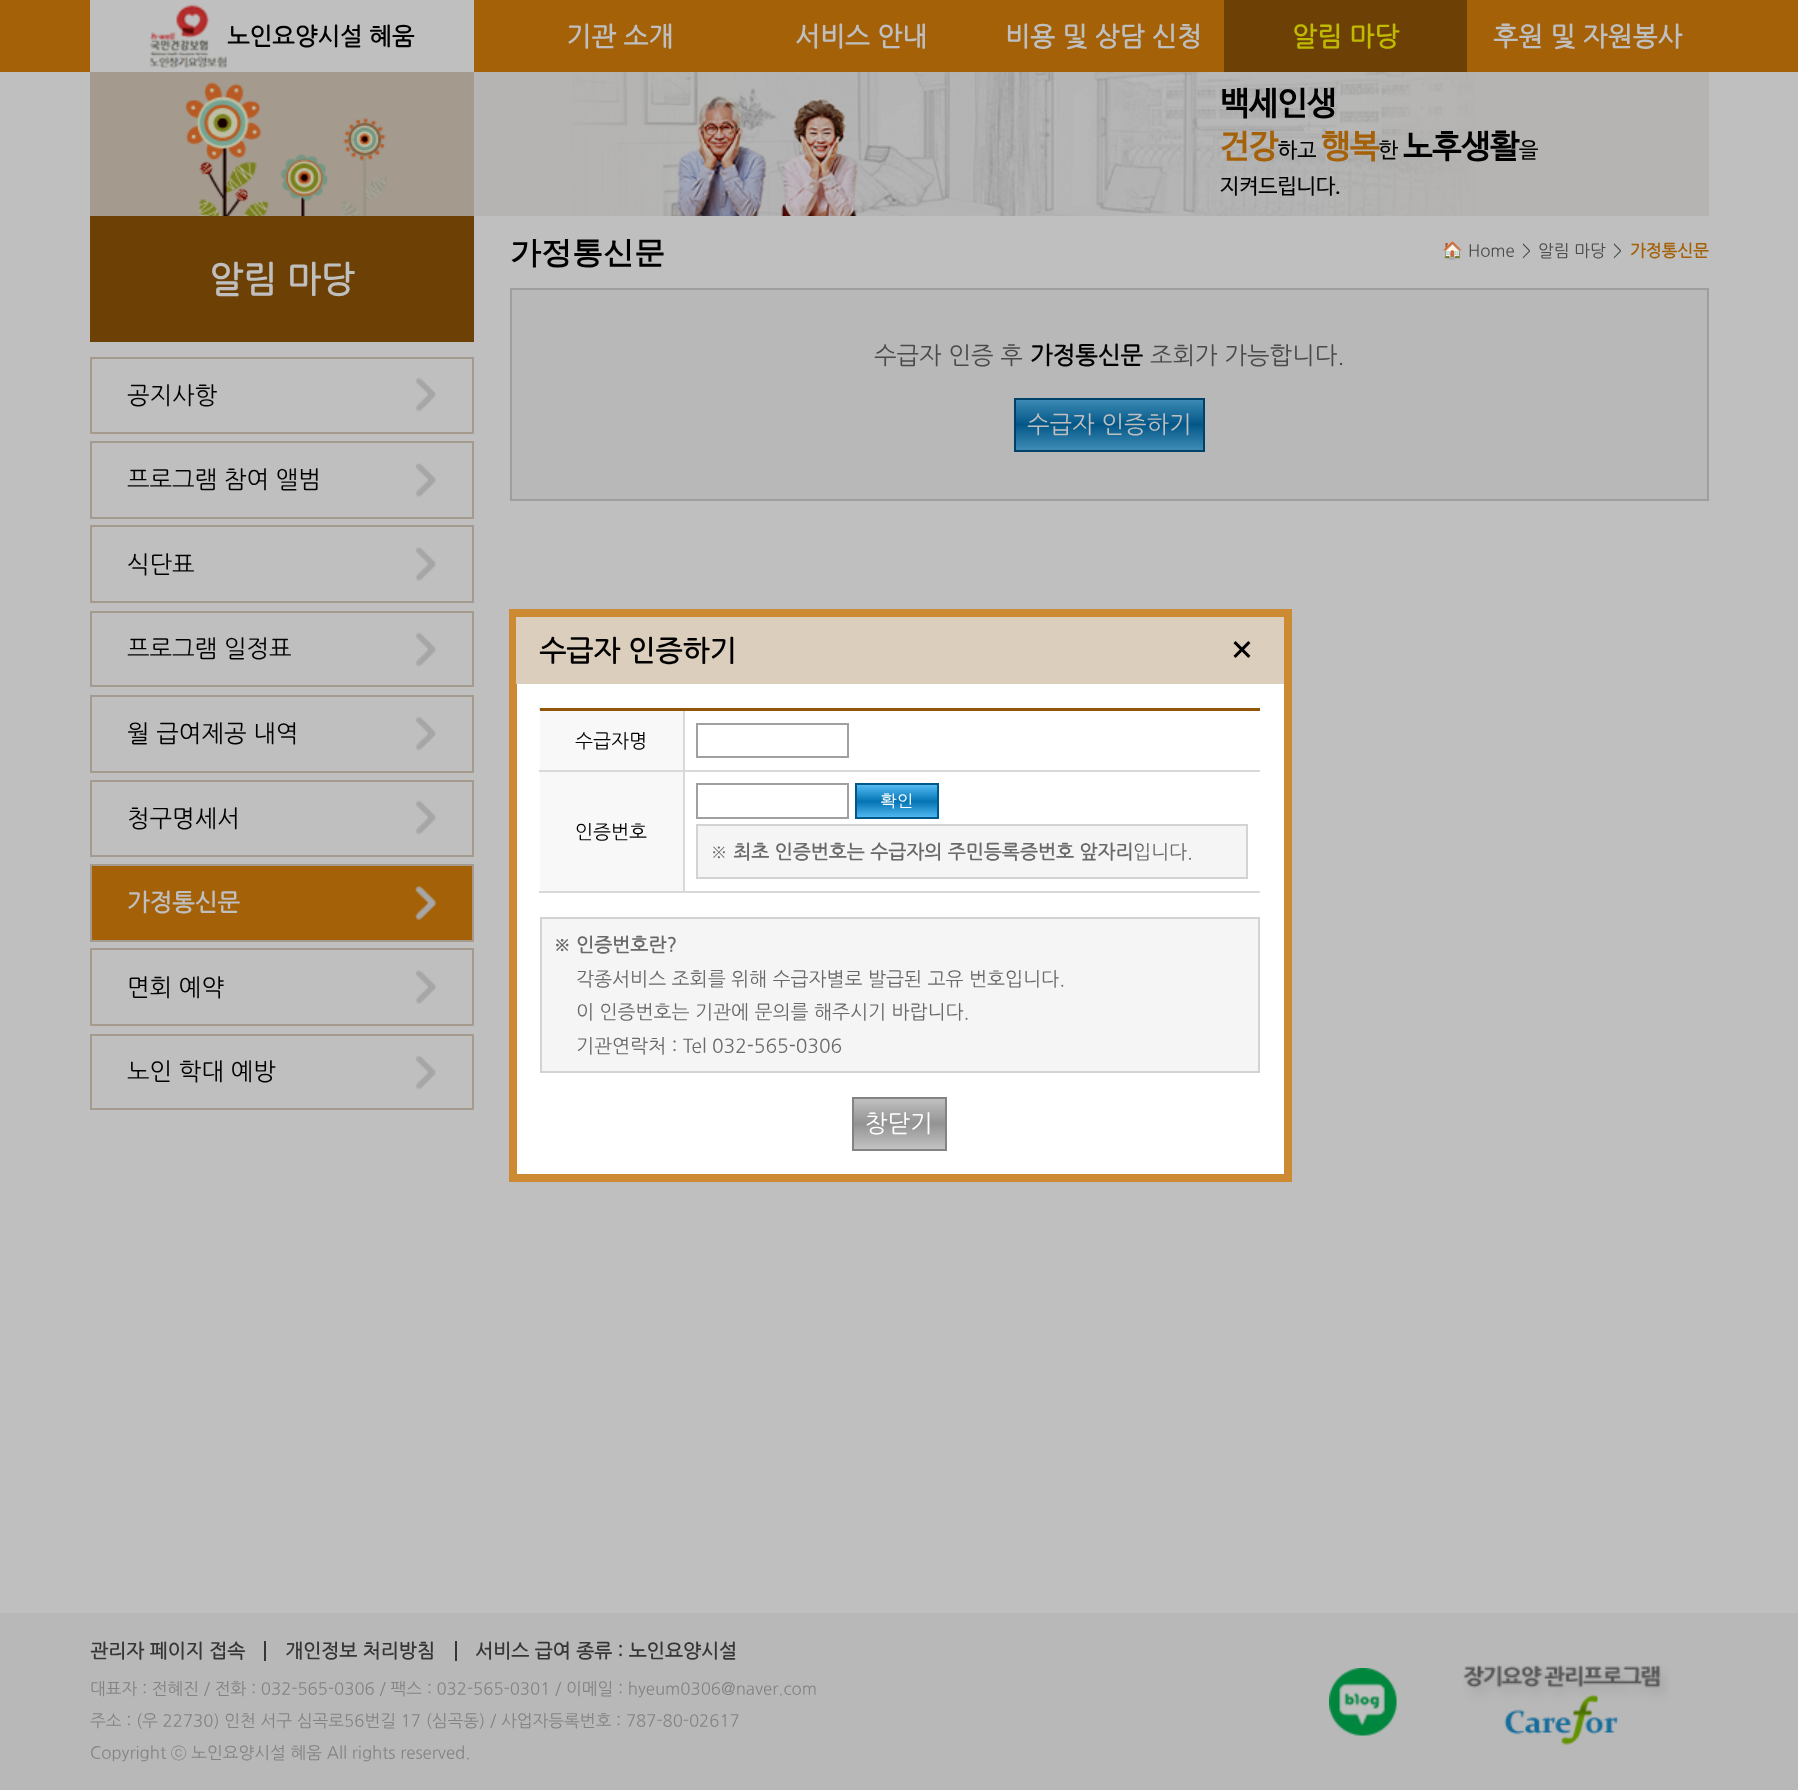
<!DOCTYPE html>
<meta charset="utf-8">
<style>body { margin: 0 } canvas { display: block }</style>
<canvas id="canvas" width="1798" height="1790"></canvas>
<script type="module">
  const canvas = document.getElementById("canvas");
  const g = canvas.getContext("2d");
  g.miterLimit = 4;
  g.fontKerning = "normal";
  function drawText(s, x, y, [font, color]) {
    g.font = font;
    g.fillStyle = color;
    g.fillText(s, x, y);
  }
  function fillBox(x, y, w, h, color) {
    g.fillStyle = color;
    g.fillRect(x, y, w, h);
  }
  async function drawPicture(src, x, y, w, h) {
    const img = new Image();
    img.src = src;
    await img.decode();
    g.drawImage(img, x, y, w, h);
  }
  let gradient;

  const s1 = ["bold 24px NanumGothic", "#000000"];
  const s2 = ["bold 26.5px NanumGothic", "#BFBFBF"];
  const s3 = ["bold 26.5px NanumGothic", "#BFB900"];
  const s4 = ["bold 32.5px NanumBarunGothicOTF", "#000000"];
  const s5 = ["bold 32.5px NanumBarunGothicOTF", "#A46108"];
  const s6 = ["21.5px NanumBarunGothicOTF", "#000000"];
  const s7 = ["bold 31px WenQuanYi Zen Hei", "#000000"];
  const s8 = ["16.8px Noto Color Emoji", "#4A4A4A"];
  const s9 = ["16.8px NanumGothic", "#4A4A4A"];
  const s10 = ["bold 16.8px NanumGothic", "#A46108"];
  const s11 = ["bold 36px NanumGothic", "#BFBFBF"];
  const s12 = ["24px NanumGothic", "#000000"];
  const s13 = ["bold 24px NanumGothic", "#BFBFBF"];
  const s14 = ["24px NanumGothic", "#4A4A4A"];
  const s15 = ["24px NanumGothic", "#BFBFBF"];
  const s16 = ["bold 19.2px NanumGothic", "#363636"];
  const s17 = ["16.8px NanumGothic", "#838383"];
  const s18 = ["bold 28.75px NanumGothic", "#000000"];
  const s19 = ["19.2px NanumGothic", "#000000"];
  const s20 = ["500 16.8px WenQuanYi Zen Hei", "#FFFFFF"];
  const s21 = ["19.2px NanumGothic", "#696969"];
  const s22 = ["bold 19.2px NanumGothic", "#696969"];
  const s23 = ["24px NanumGothic", "#FFFFFF"];

  fillBox(0, 0, 1798, 1790, "#BFBFBF");
  fillBox(0, 0, 1798, 72, "#A46108");
  fillBox(90, 0, 384, 72, "#BFBFBF");
  await drawPicture("pic1.png", 150, 4, 77, 64);
  drawText("노인요양시설 혜움", 227, 44, s1);
  drawText("기관 소개", 566, 45, s2);
  drawText("서비스 안내", 795, 45, s2);
  drawText("비용 및 상담 신청", 1005, 45, s2);
  fillBox(1224, 0, 243, 72, "#6D4106");
  drawText("알림 마당", 1292, 45, s3);
  drawText("후원 및 자원봉사", 1493, 45, s2);
  fillBox(90, 72, 384, 144, "#A49B8E");
  await drawPicture("pic2.png", 185, 82, 202, 134);
  fillBox(474, 72, 1235, 144, "#B5B4B3");
  await drawPicture("pic3.png", 572, 72, 902, 144);
  await drawPicture("pic4.png", 676, 96, 182, 120);
  drawText("백세인생", 1220, 114, s4);
  drawText("건강", 1220, 157, s5);
  drawText("하고", 1278, 157, s6);
  drawText("행복", 1321, 157, s5);
  drawText("한", 1379, 157, s6);
  drawText("노후생활", 1403, 157, s4);
  drawText("을", 1519, 157, s6);
  drawText("지켜드립니다.", 1220, 193, s6);
  drawText("가정통신문", 510, 263, s7);
  drawText("🏠", 1442, 256, s8);
  drawText("Home", 1468, 256, s9);
  drawText(">", 1522, 256, s9);
  drawText("알림 마당", 1538, 256, s9);
  drawText(">", 1613, 256, s9);
  drawText("가정통신문", 1630, 256, s10);
  fillBox(90, 216, 384, 126, "#6D4106");
  drawText("알림 마당", 209, 291, s11);
  await drawPicture("pic5.png", 416, 377, 20, 35);
  g.strokeStyle = "#A49B8E";
  g.lineWidth = 2;
  g.strokeRect(91, 358, 382, 75);
  drawText("공지사항", 127, 403, s12);
  await drawPicture("pic6.png", 416, 463, 20, 34);
  g.strokeRect(91, 442, 382, 76);
  drawText("프로그램 참여 앨범", 127, 487, s12);
  await drawPicture("pic7.png", 416, 547, 20, 34);
  g.strokeRect(91, 526, 382, 76);
  drawText("식단표", 127, 572, s12);
  await drawPicture("pic5.png", 416, 632, 20, 35);
  g.strokeRect(91, 612, 382, 74);
  drawText("프로그램 일정표", 127, 656, s12);
  await drawPicture("pic5.png", 416, 716, 20, 35);
  g.strokeRect(91, 696, 382, 76);
  drawText("월 급여제공 내역", 127, 741, s12);
  await drawPicture("pic5.png", 416, 800, 20, 35);
  g.strokeRect(91, 781, 382, 75);
  drawText("청구명세서", 127, 826, s12);
  fillBox(92, 866, 380, 74, "#A46108");
  await drawPicture("pic8.png", 415, 886, 22, 34);
  g.strokeRect(91, 865, 382, 76);
  drawText("가정통신문", 127, 910, s13);
  await drawPicture("pic6.png", 416, 970, 20, 34);
  g.strokeRect(91, 949, 382, 76);
  drawText("면회 예약", 127, 995, s12);
  await drawPicture("pic5.png", 416, 1055, 20, 35);
  g.strokeRect(91, 1035, 382, 74);
  drawText("노인 학대 예방", 127, 1079, s12);
  g.fillStyle = "#B8B8B8";
  g.beginPath();
  g.rect(511, 289, 1197, 211);
  g.fill();
  g.strokeStyle = "#9E9E9E";
  g.stroke();
  drawText("수급자 인증 후", 874, 363, s14);
  drawText("가정통신문", 1030, 363, s1);
  drawText("조회가 가능합니다.", 1150, 363, s14);
  gradient = g.createLinearGradient(1109, 450, 1109, 399);
  gradient.addColorStop(0, "#3E8CB6");
  gradient.addColorStop(0.5, "#035787");
  gradient.addColorStop(1, "#3E8CB6");
  g.fillStyle = gradient;
  g.fillRect(1016, 400, 187, 50);
  g.strokeStyle = "#004267";
  g.strokeRect(1015, 399, 189, 52);
  drawText("수급자 인증하기", 1027, 432, s15);
  fillBox(0, 1613, 1798, 177, "#B8B8B8");
  drawText("관리자 페이지 접속", 90, 1657, s16);
  fillBox(264, 1641, 2, 20, "#363636");
  drawText("개인정보 처리방침", 285, 1657, s16);
  fillBox(455, 1641, 2, 20, "#363636");
  drawText("서비스 급여 종류 : 노인요양시설", 475, 1657, s16);
  drawText("대표자 : 전혜진 / 전화 : 032-565-0306 / 팩스 : 032-565-0301 / 이메일 : hyeum0306@naver.com", 90, 1694, s17);
  drawText("주소 : (우 22730) 인천 서구 심곡로56번길 17 (심곡동)", 90, 1726, s17);
  drawText("/ 사업자등록번호 : 787-80-02617", 490, 1726, s17);
  drawText("Copyright ⓒ 노인요양시설 혜움 All rights reserved.", 90, 1758, s17);
  await drawPicture("pic9.png", 1329, 1668, 68, 68);
  await drawPicture("pic10.png", 1463, 1664, 206, 81);
  fillBox(517, 684, 767, 490, "#FFFFFF");
  g.strokeStyle = "#CC8A33";
  g.lineWidth = 8;
  g.strokeRect(513, 613, 775, 565);
  fillBox(516, 617, 768, 67, "#DBCEBD");
  drawText("수급자 인증하기", 539, 660, s18);
  await drawPicture("pic11.png", 1233, 641, 18, 17);
  fillBox(685, 891, 575, 2, "#D9D9D9");
  fillBox(683, 770, 577, 2, "#D9D9D9");
  fillBox(683, 770, 2, 123, "#D9D9D9");
  fillBox(539, 770, 145, 2, "#D9D9D9");
  fillBox(683, 708, 2, 63, "#D9D9D9");
  fillBox(540, 708, 720, 3, "#915608");
  fillBox(540, 711, 143, 59, "#F8F8F8");
  fillBox(539, 708, 1, 2, "#D9D9D9");
  drawText("수급자명", 575, 747, s19);
  g.strokeStyle = "#A0A0A0";
  g.lineWidth = 2;
  g.strokeRect(697, 724, 151, 33);
  fillBox(540, 772, 143, 119, "#F8F8F8");
  fillBox(539, 891, 145, 2, "#D9D9D9");
  drawText("인증번호", 575, 838, s19);
  g.strokeRect(697, 784, 151, 34);
  gradient = g.createLinearGradient(897, 818, 897, 785);
  gradient.addColorStop(0, "#53BBF3");
  gradient.addColorStop(0.5, "#0474B4");
  gradient.addColorStop(1, "#53BBF3");
  g.fillStyle = gradient;
  g.fillRect(857, 785, 80, 32);
  g.strokeStyle = "#005889";
  g.strokeRect(856, 784, 82, 34);
  drawText("확인", 880, 806, s20);
  g.fillStyle = "#F5F5F5";
  g.beginPath();
  g.rect(697, 825, 550, 53);
  g.fill();
  g.strokeStyle = "#D3D3D3";
  g.stroke();
  drawText("※", 710, 858, s21);
  drawText("최초 인증번호는 수급자의 주민등록증번호 앞자리", 733, 858, s22);
  drawText("입니다.", 1133, 858, s21);
  g.fillStyle = "#F5F5F5";
  g.beginPath();
  g.rect(541, 918, 718, 154);
  g.fill();
  g.stroke();
  drawText("※", 553, 951, s22);
  drawText("인증번호란?", 576, 951, s22);
  drawText("각종서비스 조회를 위해 수급자별로 발급된 고유 번호입니다.", 576, 985, s21);
  drawText("이 인증번호는 기관에 문의를 해주시기 바랍니다.", 576, 1018, s21);
  drawText("기관연락처 : Tel 032-565-0306", 576, 1052, s21);
  gradient = g.createLinearGradient(899, 1149, 899, 1098);
  gradient.addColorStop(0, "#C2C2C2");
  gradient.addColorStop(0.5, "#939393");
  gradient.addColorStop(1, "#C2C2C2");
  g.fillStyle = gradient;
  g.fillRect(854, 1099, 91, 50);
  g.strokeStyle = "#838383";
  g.strokeRect(853, 1098, 93, 52);
  drawText("창닫기", 865, 1131, s23);
</script>
